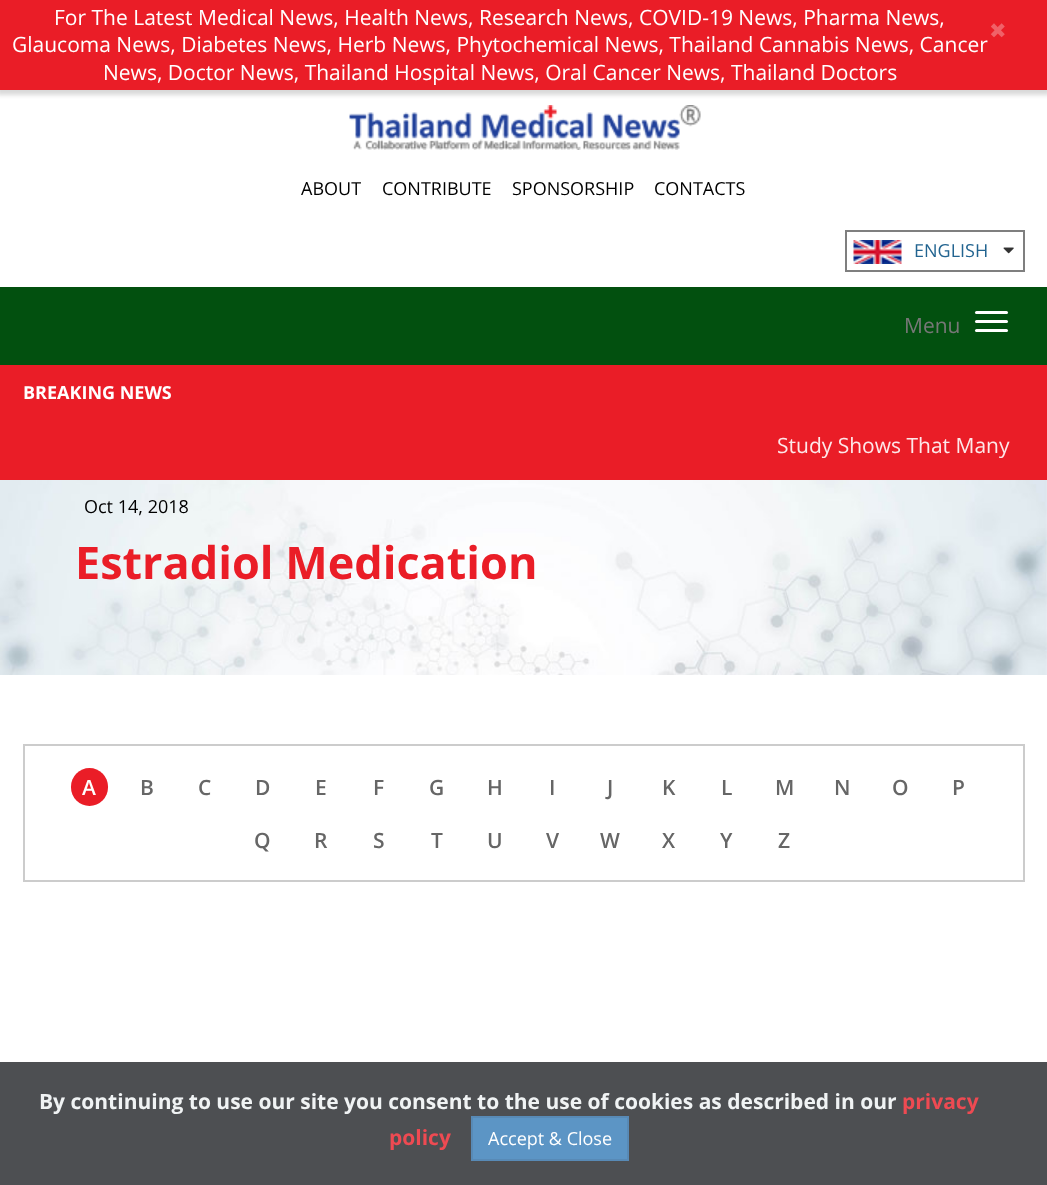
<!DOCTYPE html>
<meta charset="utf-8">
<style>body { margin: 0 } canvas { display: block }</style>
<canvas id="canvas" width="1047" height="1185"></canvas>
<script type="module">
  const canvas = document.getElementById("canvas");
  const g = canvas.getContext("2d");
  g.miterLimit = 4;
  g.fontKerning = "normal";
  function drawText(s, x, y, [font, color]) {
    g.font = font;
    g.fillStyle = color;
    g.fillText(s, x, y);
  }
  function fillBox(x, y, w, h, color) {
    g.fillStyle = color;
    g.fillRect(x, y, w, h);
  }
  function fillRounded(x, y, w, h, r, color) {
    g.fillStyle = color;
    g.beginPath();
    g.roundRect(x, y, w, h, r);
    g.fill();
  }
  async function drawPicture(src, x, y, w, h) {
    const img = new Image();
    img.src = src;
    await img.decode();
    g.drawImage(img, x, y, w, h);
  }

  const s1 = ["21px Open Sans", "#FFFFFF"];
  const s2 = ["21px DejaVu Sans", "#F06168"];
  const s3 = ["18px Open Sans", "#000000"];
  const s4 = ["18px Open Sans", "#226490"];
  const s5 = ["21px Open Sans", "#777777"];
  const s6 = ["bold 18px Open Sans", "#FFFFFF"];
  const s7 = ["21px Open Sans", "#FDE8E9"];
  const s8 = ["bold 45px Open Sans", "#EA1D27"];
  const s9 = ["600 21px Open Sans", "#FFFFFF"];
  const s10 = ["600 21px Open Sans", "#666666"];
  const s11 = ["bold 21px Open Sans", "#F0F3F4"];
  const s12 = ["bold 21px Open Sans", "#EE4A52"];
  const s13 = ["18px Open Sans", "#FFFFFF"];

  fillBox(0, 0, 1047, 1185, "#FFFFFF");
  g.fillStyle = "rgba(0, 0, 0, 0.15)";
  g.filter = "blur(2px)";
  g.beginPath();
  g.rect(-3, -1, 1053, 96);
  g.fill();
  g.filter = "none";
  fillBox(0, 0, 1047, 90, "#EA1D27");
  drawText("For The Latest Medical News, Health News, Research News, COVID-19 News, Pharma News,", 54, 25, s1);
  drawText("Glaucoma News, Diabetes News, Herb News, Phytochemical News, Thailand Cannabis News, Cancer", 12, 52, s1);
  drawText("News, Doctor News, Thailand Hospital News, Oral Cancer News, Thailand Doctors", 103, 80, s1);
  drawText("✖", 989, 38, s2);
  await drawPicture("pic1.png", 349, 105, 352, 45);
  drawText("ABOUT", 301, 195, s3);
  drawText("CONTRIBUTE", 382, 195, s3);
  drawText("SPONSORSHIP", 512, 195, s3);
  drawText("CONTACTS", 654, 195, s3);
  g.strokeStyle = "#7F7F7F";
  g.lineWidth = 2;
  g.strokeRect(846, 231, 178, 40);
  await drawPicture("pic2.png", 853, 240, 49, 24);
  drawText("ENGLISH", 914, 257, s4);
  await drawPicture("pic3.png", 1003, 247, 11, 7);
  fillBox(0, 287, 1047, 78, "#02500F");
  drawText("Menu", 904, 333, s5);
  fillRounded(975, 311, 33, 3, 1.5, "#FFFFFF");
  fillRounded(975, 320, 33, 3, 1.5, "#FFFFFF");
  fillRounded(975, 329, 33, 3, 1.5, "#FFFFFF");
  fillBox(0, 365, 1047, 115, "#EA1D27");
  drawText("BREAKING NEWS", 23, 399, s6);
  drawText("Study Shows That Many", 777, 453, s7);
  await drawPicture("pic4.png", 0, 480, 1047, 195);
  drawText("Oct 14, 2018", 84, 513, s3);
  drawText("Estradiol Medication", 75, 579, s8);
  g.strokeStyle = "#CCCCCC";
  g.strokeRect(24, 745, 1000, 136);
  fillRounded(71, 768, 37, 38, 18.5, "#EA1D27");
  drawText("A", 82, 795, s9);
  drawText("B", 140, 795, s10);
  drawText("C", 198, 795, s10);
  drawText("D", 255, 795, s10);
  drawText("E", 315, 795, s10);
  drawText("F", 373, 795, s10);
  drawText("G", 429, 795, s10);
  drawText("H", 487, 795, s10);
  drawText("I", 549, 795, s10);
  drawText("J", 607, 795, s10);
  drawText("K", 662, 795, s10);
  drawText("L", 721, 795, s10);
  drawText("M", 775, 795, s10);
  drawText("N", 834, 795, s10);
  drawText("O", 892, 795, s10);
  drawText("P", 952, 795, s10);
  drawText("Q", 254, 848, s10);
  drawText("R", 314, 848, s10);
  drawText("S", 373, 848, s10);
  drawText("T", 431, 848, s10);
  drawText("U", 487, 848, s10);
  drawText("V", 546, 848, s10);
  drawText("W", 600, 848, s10);
  drawText("X", 662, 848, s10);
  drawText("Y", 720, 848, s10);
  drawText("Z", 778, 848, s10);
  fillBox(0, 1062, 1047, 123, "#4D4F52");
  drawText("By continuing to use our site you consent to the use of cookies as described in our", 39, 1109, s11);
  drawText("privacy", 902, 1109, s12);
  drawText("policy", 389, 1145, s12);
  g.fillStyle = "#5C95C5";
  g.beginPath();
  g.rect(472, 1117, 156, 43);
  g.fill();
  g.strokeStyle = "#588AB6";
  g.stroke();
  drawText("Accept & Close", 488, 1145, s13);
</script>
